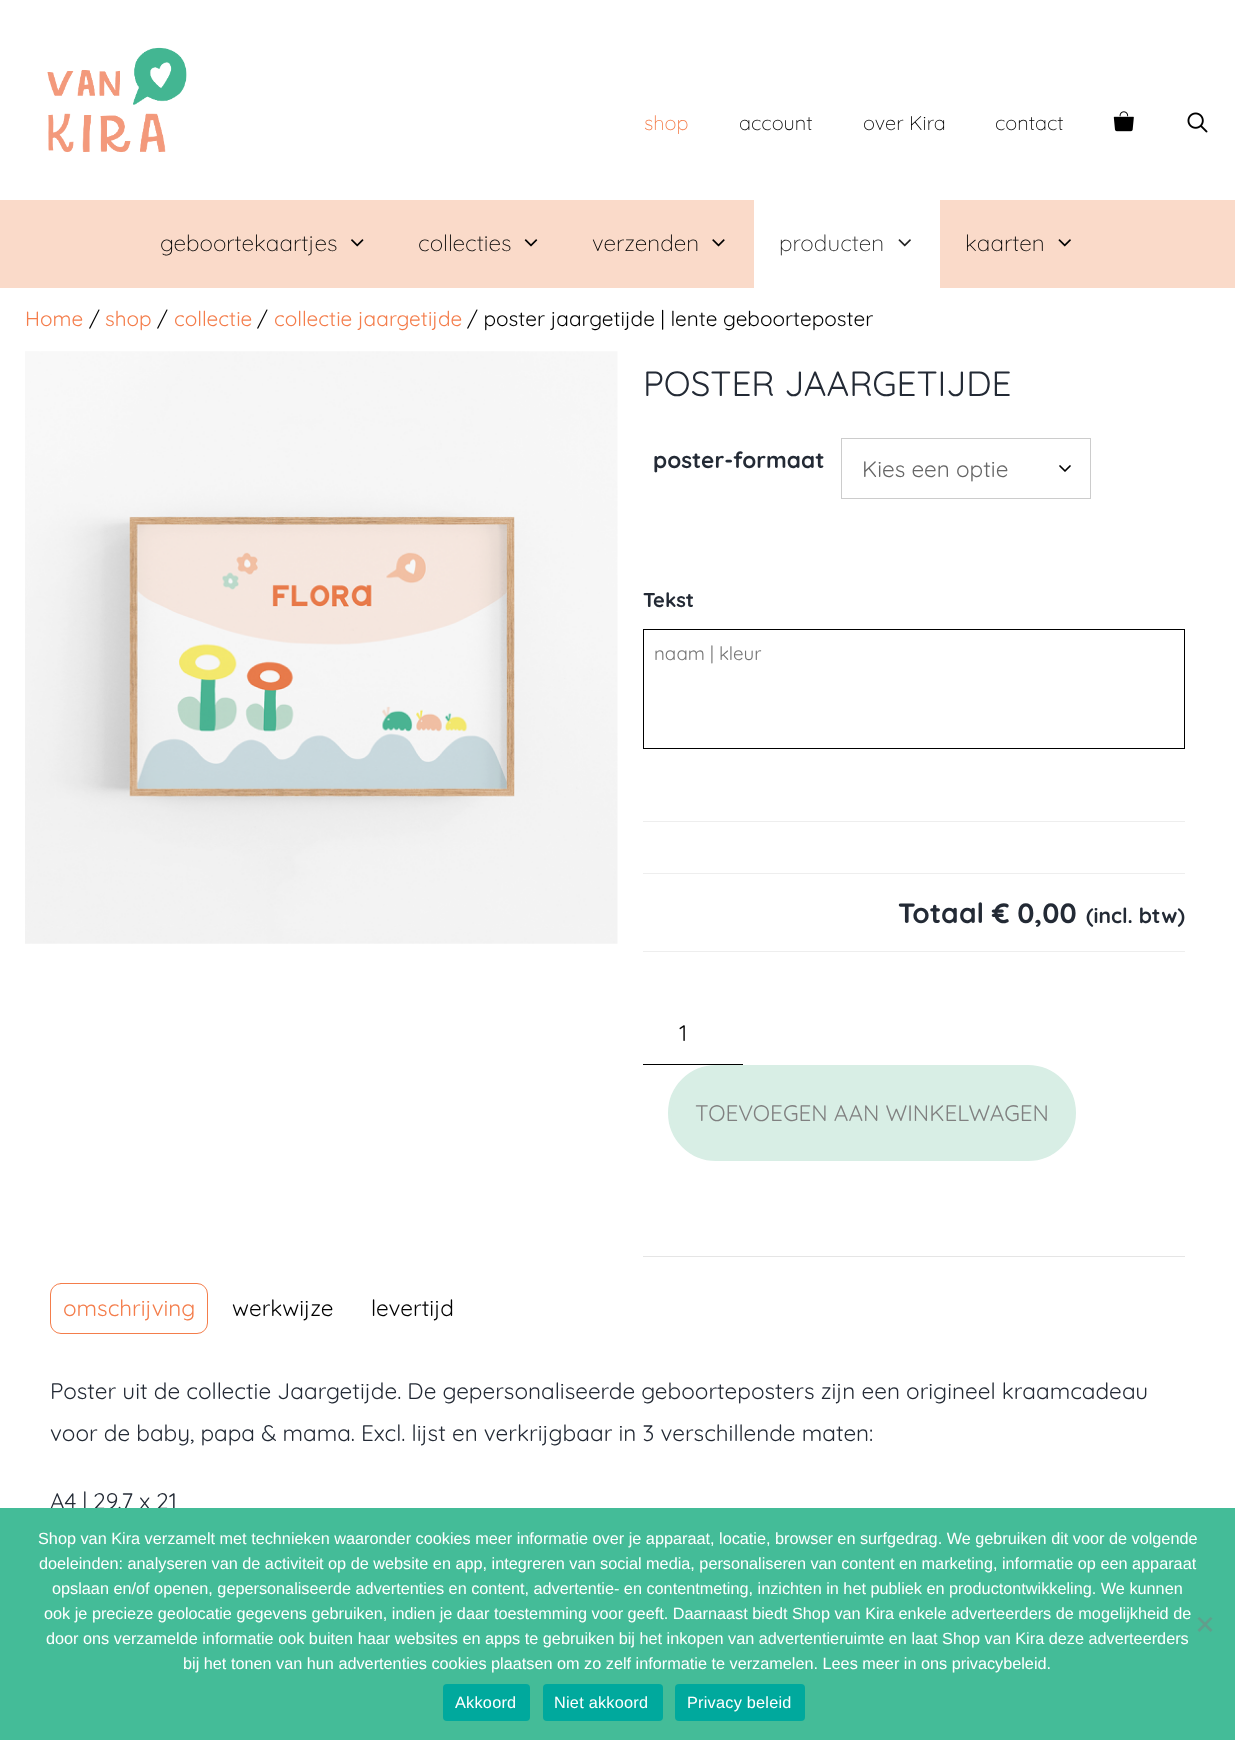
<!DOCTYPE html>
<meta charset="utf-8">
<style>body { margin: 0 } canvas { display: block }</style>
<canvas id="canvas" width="1235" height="1740"></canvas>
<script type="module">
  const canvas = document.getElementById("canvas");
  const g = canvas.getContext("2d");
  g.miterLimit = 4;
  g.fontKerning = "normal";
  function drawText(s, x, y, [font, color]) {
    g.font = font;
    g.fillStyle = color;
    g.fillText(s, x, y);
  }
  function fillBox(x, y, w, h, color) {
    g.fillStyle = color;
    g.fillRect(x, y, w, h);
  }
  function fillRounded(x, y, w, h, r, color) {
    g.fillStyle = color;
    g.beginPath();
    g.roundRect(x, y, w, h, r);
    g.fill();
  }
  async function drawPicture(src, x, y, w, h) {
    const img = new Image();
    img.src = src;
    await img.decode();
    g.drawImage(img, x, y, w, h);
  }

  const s1 = ["300 20px 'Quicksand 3'", "#F47D4B"];
  const s2 = ["300 20px 'Quicksand 3'", "#000000"];
  const s3 = ["300 22.5px 'Quicksand 3'", "#000000"];
  const s4 = ["300 22.5px 'Quicksand 3'", "#222222"];
  const s5 = ["300 20.75px Quicksand", "#F47D4B"];
  const s6 = ["300 20.75px Quicksand", "#000000"];
  const s7 = ["300 35px Quicksand", "#232A35"];
  const s8 = ["300 22.5px 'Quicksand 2'", "#232A35"];
  const s9 = ["300 22.5px Quicksand", "#666666"];
  const s10 = ["300 20px 'Quicksand 2'", "#232A35"];
  const s11 = ["300 18.75px Quicksand", "#757575"];
  const s12 = ["300 28px 'Quicksand 2'", "#232A35"];
  const s13 = ["300 21px 'Quicksand 2'", "#232A35"];
  const s14 = ["300 22.5px Quicksand", "#000000"];
  const s15 = ["300 22.5px Quicksand", "#808080"];
  const s16 = ["300 22.5px Quicksand", "#F47D4B"];
  const s17 = ["300 22.5px Quicksand", "#232A35"];
  const s18 = ["16.25px Liberation Sans", "#FFFFFF"];

  fillBox(0, 0, 1235, 1740, "#FFFFFF");
  await drawPicture("pic1.png", 47, 47, 140, 106);
  drawText("shop", 644, 130, s1);
  drawText("account", 739, 130, s2);
  drawText("over Kira", 863, 130, s2);
  drawText("contact", 995, 130, s2);
  await drawPicture("pic2.png", 1113, 111, 21, 21);
  await drawPicture("pic3.png", 1187, 112, 21, 21);
  fillBox(0, 200, 1235, 88, "#FADAC9");
  drawText("geboortekaartjes", 160, 251, s3);
  await drawPicture("pic4.png", 351, 239, 13, 8);
  drawText("collecties", 418, 251, s3);
  await drawPicture("pic5.png", 524, 239, 14, 8);
  drawText("verzenden", 592, 251, s3);
  await drawPicture("pic6.png", 712, 239, 13, 8);
  fillBox(754, 200, 186, 88, "#FFFFFF");
  drawText("producten", 779, 251, s4);
  await drawPicture("pic7.png", 898, 239, 13, 8);
  drawText("kaarten", 965, 251, s3);
  await drawPicture("pic8.png", 1058, 239, 13, 8);
  drawText("Home", 25, 326, s5);
  drawText("/", 89, 326, s6);
  drawText("shop", 105, 326, s5);
  drawText("/", 157, 326, s6);
  drawText("collectie", 174, 326, s5);
  drawText("/", 257, 326, s6);
  drawText("collectie jaargetijde", 274, 326, s5);
  drawText("/ poster jaargetijde | lente geboorteposter", 467, 326, s6);
  await drawPicture("pic9.png", 25, 351, 593, 593);
  drawText("POSTER JAARGETIJDE", 643, 396, s7);
  drawText("poster-formaat", 653, 468, s8);
  g.beginPath();
  g.moveTo(1060, 466);
  g.lineTo(1065, 471);
  g.lineTo(1070, 466);
  g.strokeStyle = "#000000";
  g.lineWidth = 1.7;
  g.lineCap = "round";
  g.lineJoin = "round";
  g.stroke();
  g.strokeStyle = "#CCCCCC";
  g.lineWidth = 1;
  g.lineJoin = "miter";
  g.strokeRect(841.5, 438.5, 249, 60);
  drawText("Kies een optie", 862, 477, s9);
  drawText("Tekst", 643, 607, s10);
  g.strokeStyle = "#000000";
  g.strokeRect(643.5, 629.5, 541, 119);
  drawText("naam | kleur", 654, 660, s11);
  fillBox(643, 821, 542, 1, "#EEEEEE");
  fillBox(643, 951, 542, 1, "#EEEEEE");
  fillBox(643, 873, 542, 1, "#EEEEEE");
  drawText("Totaal € 0,00", 898, 923, s12);
  drawText("(incl. btw)", 1086, 923, s13);
  fillBox(643, 1064, 100, 1, "#000000");
  drawText("1", 679, 1041, s14);
  g.fillStyle = "#D8EEE5";
  g.beginPath();
  g.roundRect(669.5, 1066.5, 405, 93, 46.5);
  g.fill();
  g.strokeStyle = "#D8EEE5";
  g.lineWidth = 3;
  g.stroke();
  drawText("TOEVOEGEN AAN WINKELWAGEN", 695, 1121, s15);
  fillBox(643, 1256, 542, 1, "#E5E5E5");
  g.beginPath();
  g.roundRect(50.5, 1283.5, 157, 50, 10.5);
  g.strokeStyle = "#F47D4B";
  g.lineWidth = 1;
  g.stroke();
  drawText("omschrijving", 63, 1316, s16);
  drawText("werkwijze", 232, 1316, s14);
  drawText("levertijd", 371, 1316, s14);
  drawText("Poster uit de collectie Jaargetijde. De gepersonaliseerde geboorteposters zijn een origineel kraamcadeau", 50, 1399, s17);
  drawText("voor de baby, papa & mama. Excl. lijst en verkrijgbaar in 3 verschillende maten:", 50, 1441, s17);
  drawText("A4 | 29.7 x 21", 50, 1509, s17);
  fillBox(0, 1508, 1235, 232, "#44BC98");
  drawText("Shop van Kira verzamelt met technieken waaronder cookies meer informatie over je apparaat, locatie, browser en surfgedrag. We gebruiken dit voor de volgende", 38, 1544, s18);
  drawText("doeleinden: analyseren van de activiteit op de website en app, integreren van social media, personaliseren van content en marketing, informatie op een apparaat", 39, 1569, s18);
  drawText("opslaan en/of openen, gepersonaliseerde advertenties en content, advertentie- en contentmeting, inzichten in het publiek en productontwikkeling. We kunnen", 52, 1594, s18);
  drawText("ook je precieze geolocatie gegevens gebruiken, indien je daar toestemming voor geeft. Daarnaast biedt Shop van Kira enkele adverteerders de mogelijkheid de", 44, 1619, s18);
  drawText("door ons verzamelde informatie ook buiten haar websites en apps te gebruiken bij het inkopen van advertentieruimte en laat Shop van Kira deze adverteerders", 46, 1644, s18);
  drawText("bij het tonen van hun advertenties cookies plaatsen om zo zelf informatie te verzamelen. Lees meer in ons privacybeleid.", 183, 1669, s18);
  g.fillStyle = "#629E8C";
  g.beginPath();
  g.moveTo(1210.5, 1617);
  g.lineTo(1212.5, 1618.5);
  g.lineTo(1199.5, 1632);
  g.lineTo(1197.5, 1630);
  g.closePath();
  g.fill();
  g.beginPath();
  g.moveTo(1197.5, 1618.5);
  g.lineTo(1199.5, 1617);
  g.lineTo(1212.5, 1630);
  g.lineTo(1210.5, 1632);
  g.closePath();
  g.fill();
  fillRounded(443, 1684, 87, 37, 4, "#00A99D");
  g.letterSpacing = "0.25px";
  drawText("Akkoord", 455, 1708, s18);
  fillRounded(543, 1684, 120, 37, 4, "#00A99D");
  drawText("Niet akkoord", 554, 1708, s18);
  fillRounded(675, 1684, 130, 37, 4, "#00A99D");
  drawText("Privacy beleid", 687, 1708, s18);
</script>
